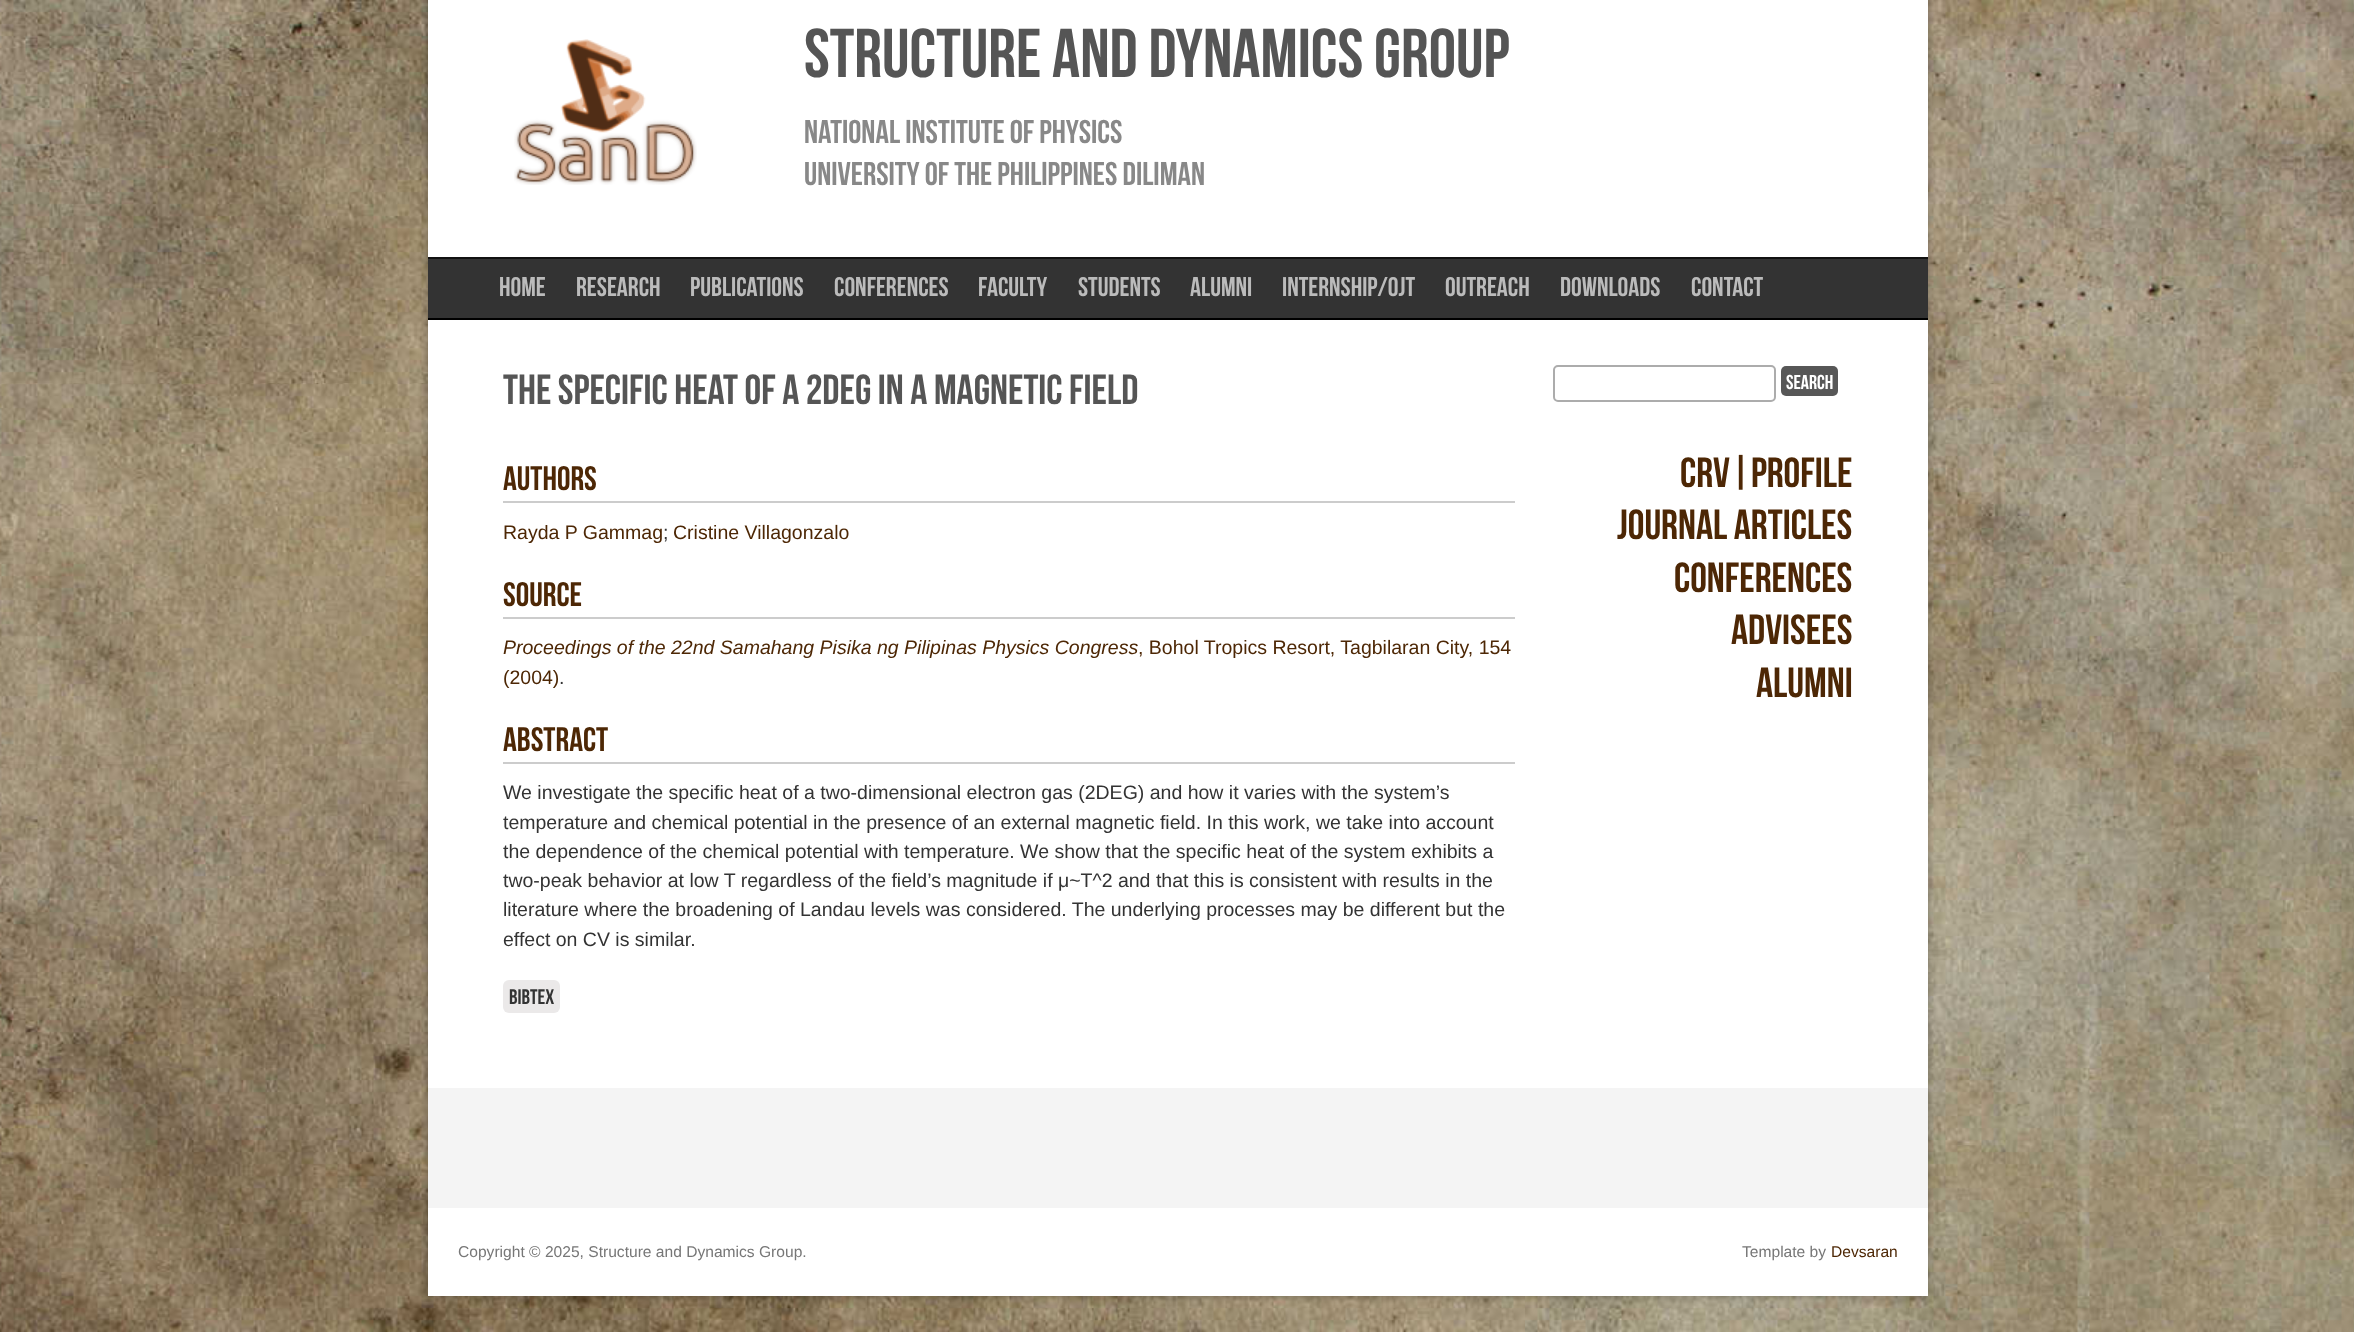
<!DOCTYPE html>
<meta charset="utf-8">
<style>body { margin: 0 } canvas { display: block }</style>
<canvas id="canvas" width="2354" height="1332"></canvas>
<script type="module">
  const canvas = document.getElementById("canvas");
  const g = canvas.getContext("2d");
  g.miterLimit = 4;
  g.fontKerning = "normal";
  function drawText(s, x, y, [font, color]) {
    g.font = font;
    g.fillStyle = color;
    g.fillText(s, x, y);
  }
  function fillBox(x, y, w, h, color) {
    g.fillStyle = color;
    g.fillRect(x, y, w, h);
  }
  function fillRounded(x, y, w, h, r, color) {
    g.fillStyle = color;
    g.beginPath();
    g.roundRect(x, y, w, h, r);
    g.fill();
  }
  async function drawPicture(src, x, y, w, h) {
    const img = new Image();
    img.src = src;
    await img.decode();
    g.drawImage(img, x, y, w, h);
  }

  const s1 = ["69px Bebas Neue", "#555555"];
  const s2 = ["33px Bebas Neue", "#888888"];
  const s3 = ["27px Bebas Neue", "#BBBBBB"];
  const s4 = ["42px Bebas Neue", "#555555"];
  const s5 = ["34px Bebas Neue", "#4D2705"];
  const s6 = ["19.5px Liberation Sans", "#4D2705"];
  const s7 = ["19.5px Liberation Sans", "#333333"];
  const s8 = ["italic 19.5px Liberation Sans", "#4D2705"];
  const s9 = ["21px Bebas Neue", "#333333"];
  const s10 = ["20px Bebas Neue", "#FFFFFF"];
  const s11 = ["42px Bebas Neue", "#4D2705"];
  const s12 = ["15.6px Liberation Sans", "#777777"];
  const s13 = ["15.6px Liberation Sans", "#4D2705"];

  fillBox(0, 0, 2354, 1332, "#FFFFFF");
  await drawPicture("pic1.png", 0, 0, 2354, 1332);
  g.fillStyle = "rgba(0, 0, 0, 0.3)";
  g.filter = "blur(4px)";
  g.beginPath();
  g.rect(428, -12, 1500, 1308);
  g.fill();
  g.filter = "none";
  fillBox(428, 0, 1500, 1296, "#FFFFFF");
  await drawPicture("pic2.png", 514, 39, 183, 146);
  drawText("Structure and Dynamics Group", 804, 77, s1);
  drawText("National Institute of Physics", 804, 143, s2);
  drawText("University of the Philippines Diliman", 804, 185, s2);
  fillBox(428, 259, 1500, 59, "#333333");
  fillBox(428, 257, 1500, 2, "#111111");
  fillBox(428, 318, 1500, 2, "#000000");
  drawText("HOME", 499, 296, s3);
  drawText("RESEARCH", 576, 296, s3);
  drawText("PUBLICATIONS", 690, 296, s3);
  drawText("CONFERENCES", 834, 296, s3);
  drawText("FACULTY", 978, 296, s3);
  drawText("STUDENTS", 1078, 296, s3);
  drawText("ALUMNI", 1190, 296, s3);
  drawText("INTERNSHIP/OJT", 1282, 296, s3);
  drawText("OUTREACH", 1445, 296, s3);
  drawText("DOWNLOADS", 1560, 296, s3);
  drawText("CONTACT", 1691, 296, s3);
  drawText("The specific heat of a 2DEG in a magnetic field", 503, 404, s4);
  fillBox(503, 501, 1012, 2, "#CCCCCC");
  drawText("Authors", 503, 490, s5);
  drawText("Rayda P Gammag", 503, 539, s6);
  drawText(";", 663, 539, s7);
  drawText("Cristine Villagonzalo", 673, 539, s6);
  fillBox(503, 617, 1012, 2, "#CCCCCC");
  drawText("Source", 503, 606, s5);
  drawText("Proceedings of the 22nd Samahang Pisika ng Pilipinas Physics Congress", 503, 654, s8);
  drawText(", Bohol Tropics Resort, Tagbilaran City, 154", 1138, 654, s6);
  drawText("(2004)", 503, 684, s6);
  drawText(".", 559, 684, s7);
  fillBox(503, 762, 1012, 2, "#CCCCCC");
  drawText("Abstract", 503, 751, s5);
  drawText("We investigate the specific heat of a two-dimensional electron gas (2DEG) and how it varies with the system’s", 503, 799, s7);
  drawText("temperature and chemical potential in the presence of an external magnetic field. In this work, we take into account", 503, 829, s7);
  drawText("the dependence of the chemical potential with temperature. We show that the specific heat of the system exhibits a", 503, 858, s7);
  drawText("two-peak behavior at low T regardless of the field’s magnitude if μ~T^2 and that this is consistent with results in the", 503, 887, s7);
  drawText("literature where the broadening of Landau levels was considered. The underlying processes may be different but the", 503, 916, s7);
  drawText("effect on CV is similar.", 503, 946, s7);
  fillRounded(503, 980, 57, 33, 6, "#EBE9E9");
  drawText("BibTeX", 509, 1004, s9);
  g.beginPath();
  g.roundRect(1554, 366, 221, 35, 4);
  g.strokeStyle = "#ACACAC";
  g.lineWidth = 2;
  g.stroke();
  fillRounded(1781, 366, 57, 30, 5, "#575757");
  drawText("Search", 1786, 389, s10);
  drawText("CRV|Profile", 1680, 487, s11);
  drawText("Journal Articles", 1617, 539, s11);
  drawText("Conferences", 1674, 592, s11);
  drawText("Advisees", 1731, 644, s11);
  drawText("Alumni", 1756, 697, s11);
  fillBox(428, 1088, 1500, 120, "#F4F4F4");
  drawText("Copyright © 2025, Structure and Dynamics Group.", 458, 1257, s12);
  drawText("Template by", 1742, 1257, s12);
  drawText("Devsaran", 1831, 1257, s13);
</script>
